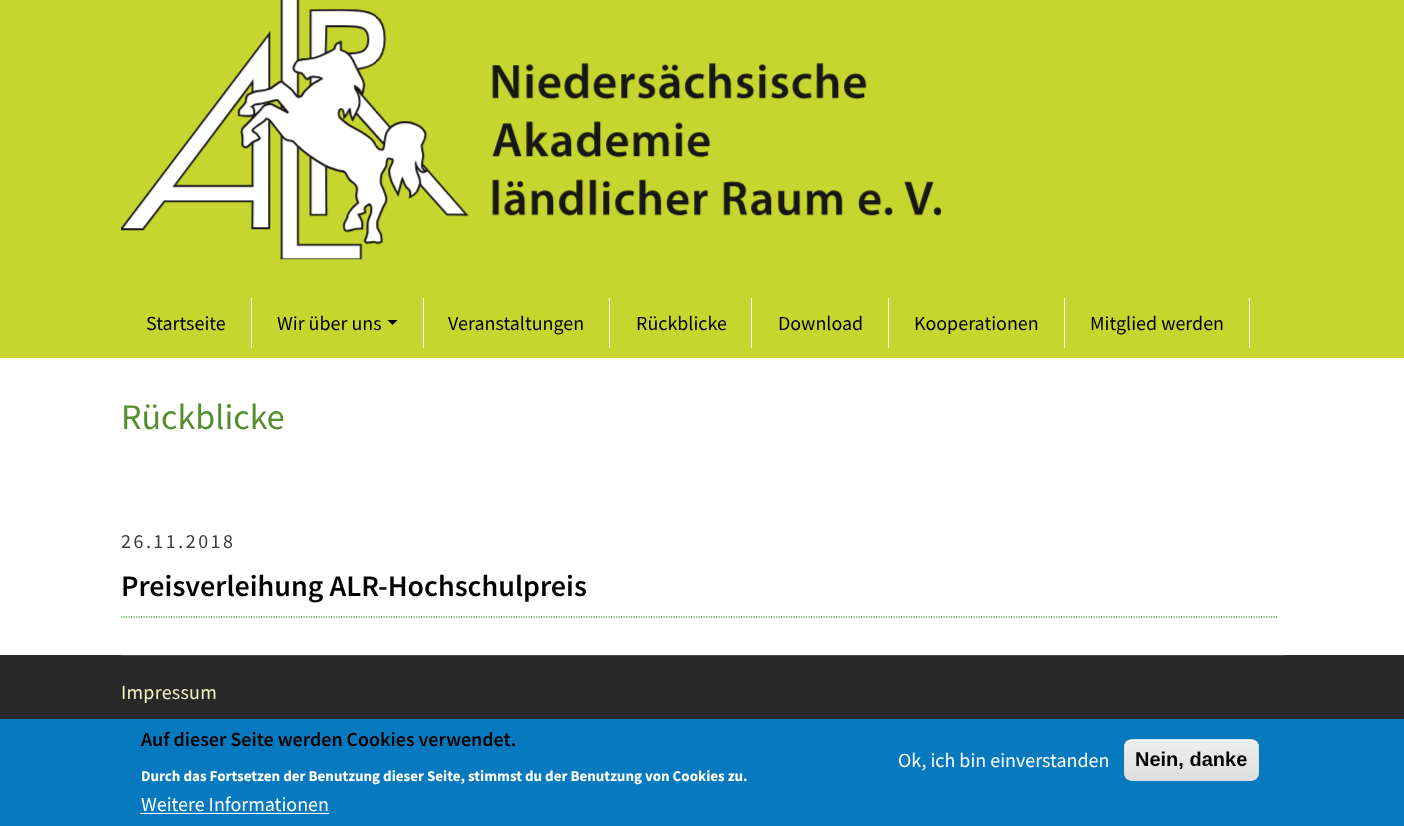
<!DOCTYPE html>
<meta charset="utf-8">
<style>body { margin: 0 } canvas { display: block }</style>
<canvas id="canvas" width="1404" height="826"></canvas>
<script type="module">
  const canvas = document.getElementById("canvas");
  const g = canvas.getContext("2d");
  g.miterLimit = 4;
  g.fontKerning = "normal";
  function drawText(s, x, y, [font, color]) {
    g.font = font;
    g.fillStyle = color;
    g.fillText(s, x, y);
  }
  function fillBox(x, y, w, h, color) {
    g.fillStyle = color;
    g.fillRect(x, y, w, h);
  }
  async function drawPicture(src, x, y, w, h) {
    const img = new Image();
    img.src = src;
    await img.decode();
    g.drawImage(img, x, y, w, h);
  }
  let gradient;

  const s1 = ["20px Source Sans Pro", "#000000"];
  const s2 = ["36px Source Sans Pro", "#558E2C"];
  const s3 = ["20px Source Sans Pro", "#3B3B3B"];
  const s4 = ["600 30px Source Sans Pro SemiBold", "#000000"];
  const s5 = ["20px Source Sans Pro", "#F3F4C1"];
  const s6 = ["600 20px Source Sans Pro SemiBold", "#000000"];
  const s7 = ["bold 15px Source Sans Pro", "#FFFFFF"];
  const s8 = ["20px Source Sans Pro", "#FFFFFF"];
  const s9 = ["bold 20px Liberation Sans", "#000000"];

  fillBox(0, 0, 1404, 826, "#FFFFFF");
  fillBox(0, 0, 1404, 358, "#C7D52F");
  await drawPicture("pic1.png", 121, 0, 820, 260);
  fillBox(251, 298, 1, 50, "#FFFFFF");
  drawText("Startseite", 146, 330, s1);
  fillBox(423, 298, 1, 50, "#FFFFFF");
  drawText("Wir über uns", 277, 330, s1);
  g.beginPath();
  g.moveTo(387.5, 320);
  g.lineTo(397.5, 320);
  g.lineTo(392.5, 325);
  g.closePath();
  g.fill();
  fillBox(609, 298, 1, 50, "#FFFFFF");
  drawText("Veranstaltungen", 448, 330, s1);
  fillBox(751, 298, 1, 50, "#FFFFFF");
  drawText("Rückblicke", 636, 330, s1);
  fillBox(888, 298, 1, 50, "#FFFFFF");
  drawText("Download", 778, 330, s1);
  fillBox(1064, 298, 1, 50, "#FFFFFF");
  drawText("Kooperationen", 914, 330, s1);
  fillBox(1249, 298, 1, 50, "#FFFFFF");
  drawText("Mitglied werden", 1090, 330, s1);
  drawText("Rückblicke", 121, 429, s2);
  g.beginPath();
  g.moveTo(121, 617);
  g.lineTo(1277.5, 617);
  g.strokeStyle = "#008000";
  g.lineWidth = 1.2;
  g.setLineDash([1.25, 1.25]);
  g.stroke();
  g.letterSpacing = "2.5px";
  drawText("26.11.2018", 121, 548, s3);
  g.letterSpacing = "0px";
  drawText("Preisverleihung ALR-Hochschulpreis", 121, 596, s4);
  fillBox(0, 655, 1404, 64, "#292929");
  fillBox(121, 655, 1163, 1, "#494949");
  g.letterSpacing = "0.25px";
  drawText("Impressum", 121, 699, s5);
  fillBox(0, 719, 1404, 107, "#0779BF");
  g.letterSpacing = "0px";
  drawText("Auf dieser Seite werden Cookies verwendet.", 141, 746, s6);
  drawText("Durch das Fortsetzen der Benutzung dieser Seite, stimmst du der Benutzung von Cookies zu.", 141, 781, s7);
  drawText("Weitere Informationen", 141, 811, s8);
  fillBox(140, 813, 189, 1, "#FFFFFF");
  drawText("Ok, ich bin einverstanden", 898, 767, s8);
  g.save();
  g.beginPath();
  g.roundRect(1124, 739, 135, 42, 8);
  g.clip();
  gradient = g.createLinearGradient(1191, 740, 1191, 780);
  gradient.addColorStop(0.05, "#EDEDED");
  gradient.addColorStop(1, "#DFDFDF");
  g.fillStyle = gradient;
  g.fillRect(1124, 740, 135, 40);
  g.restore();
  g.beginPath();
  g.moveTo(1131, 741);
  g.lineTo(1251, 741);
  g.bezierCurveTo(1255, 741, 1258, 744, 1258, 748);
  g.lineTo(1258, 746);
  g.bezierCurveTo(1258, 743, 1255, 740, 1252, 740);
  g.lineTo(1131, 740);
  g.bezierCurveTo(1128, 740, 1125, 743, 1125, 746);
  g.lineTo(1125, 748);
  g.bezierCurveTo(1125, 744, 1128, 741, 1131, 741);
  g.closePath();
  g.fill();
  g.beginPath();
  g.roundRect(1124.5, 739.5, 134, 41, 7.5);
  g.strokeStyle = "#DCDCDC";
  g.lineWidth = 1;
  g.setLineDash([]);
  g.stroke();
  drawText("Nein, danke", 1135, 766, s9);
</script>
